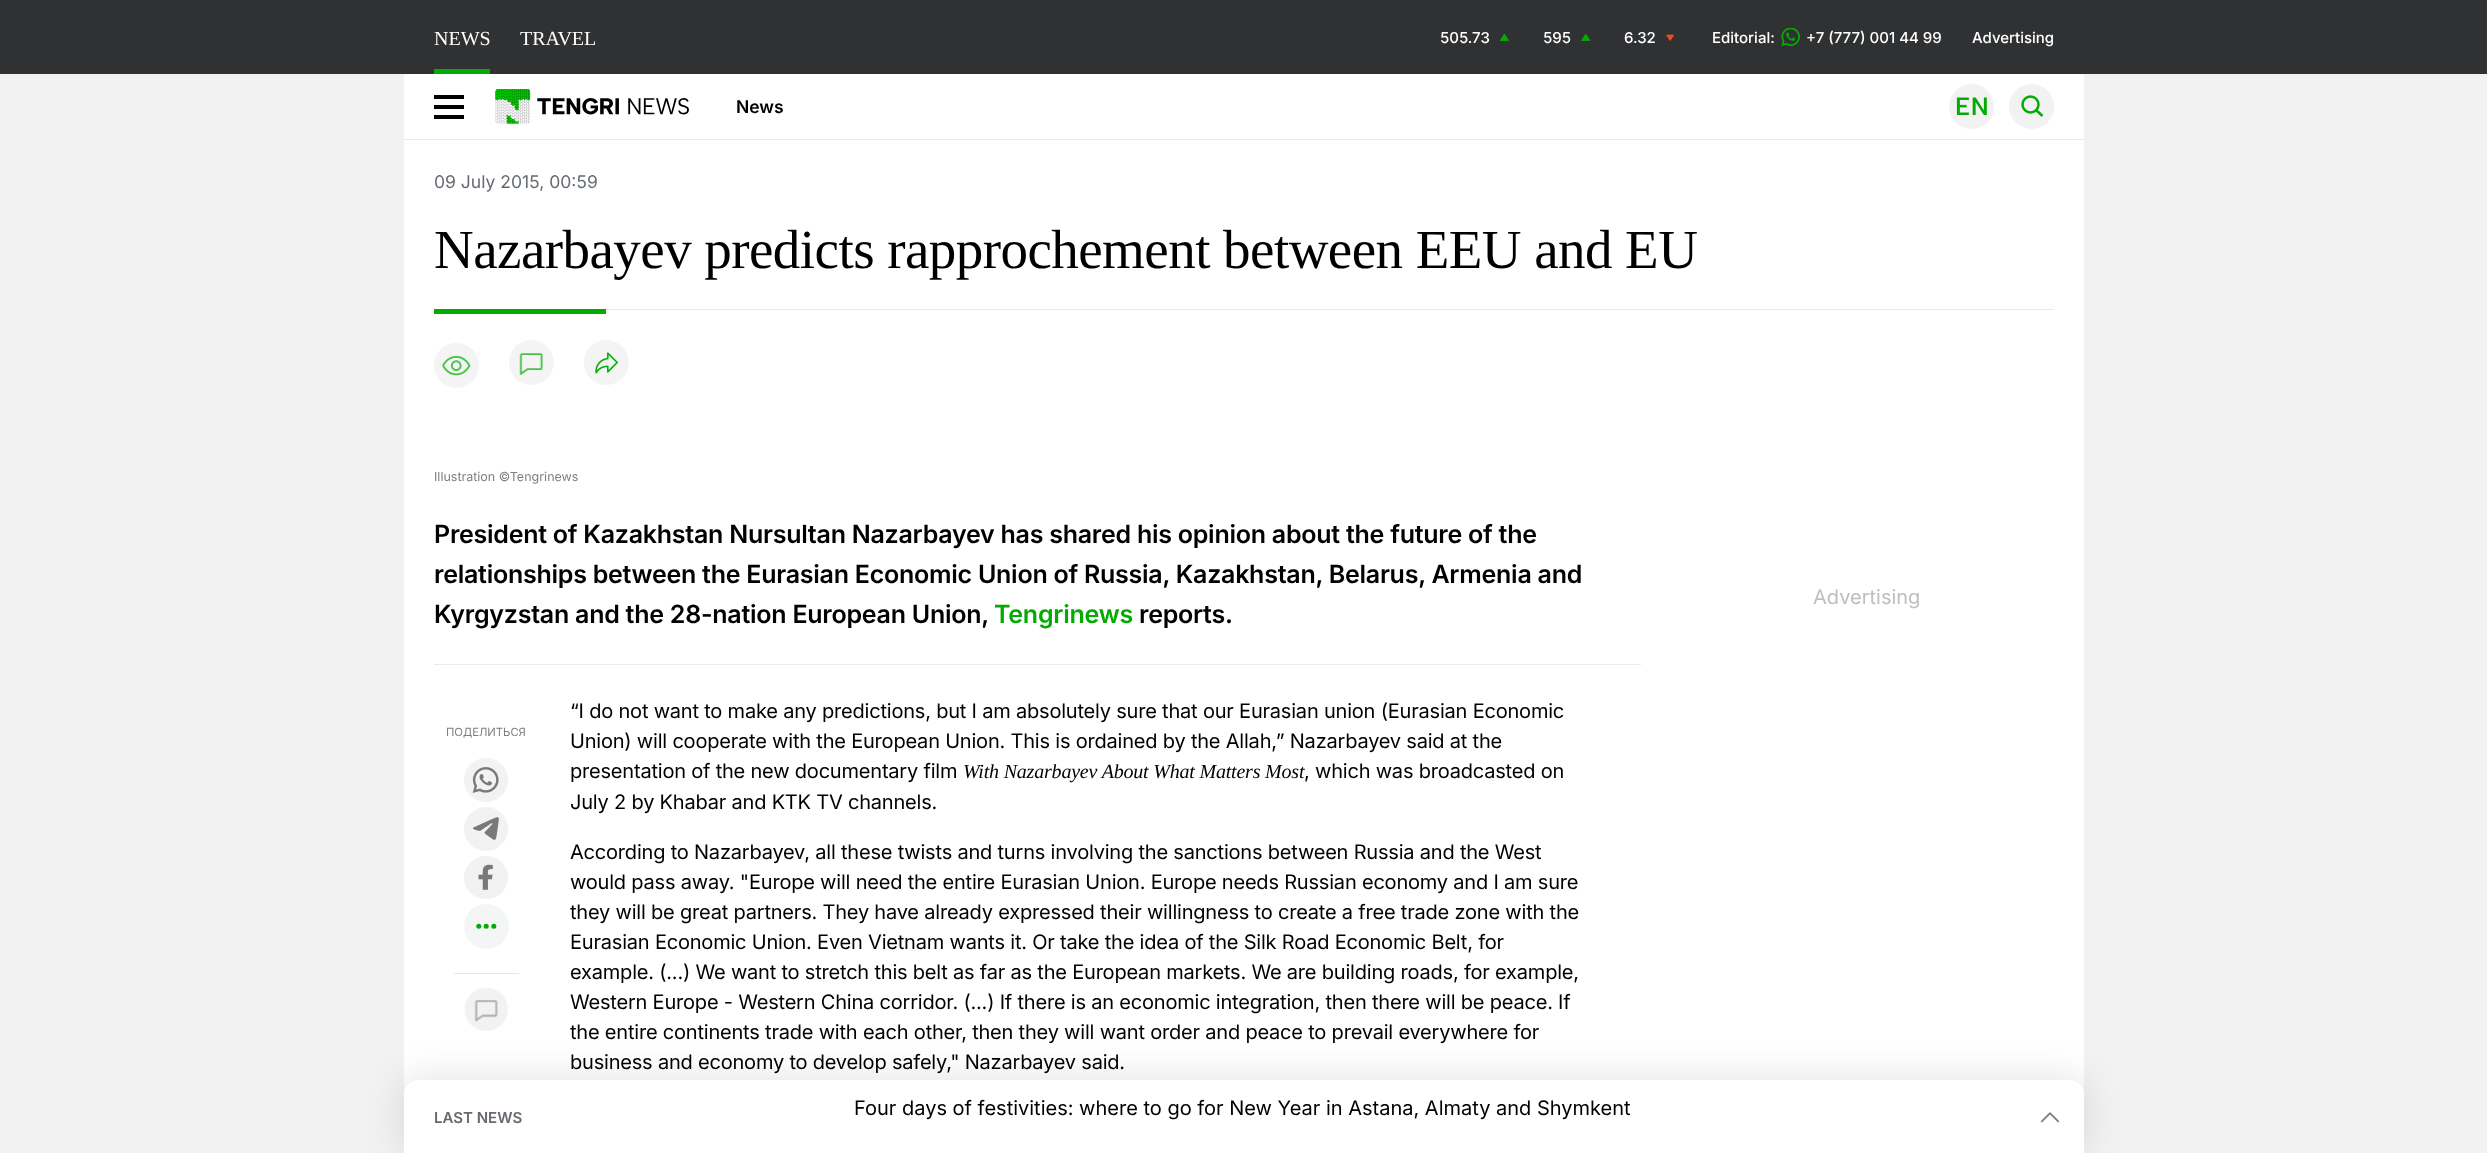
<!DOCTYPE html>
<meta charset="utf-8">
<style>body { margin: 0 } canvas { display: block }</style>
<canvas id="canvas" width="2487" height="1153"></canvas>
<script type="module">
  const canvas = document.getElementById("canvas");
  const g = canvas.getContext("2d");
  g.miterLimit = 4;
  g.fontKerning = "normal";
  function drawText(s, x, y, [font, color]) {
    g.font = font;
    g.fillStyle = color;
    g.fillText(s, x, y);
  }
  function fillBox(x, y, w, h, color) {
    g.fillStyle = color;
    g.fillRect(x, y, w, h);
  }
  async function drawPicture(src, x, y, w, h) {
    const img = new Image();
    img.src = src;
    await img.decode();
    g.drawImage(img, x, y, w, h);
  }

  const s1 = ["20px Liberation Serif", "#FFFFFF"];
  const s2 = ["500 15px Inter", "#FFFFFF"];
  const s3 = ["600 17.5px Inter", "#000000"];
  const s4 = ["17.5px Inter", "#656B71"];
  const s5 = ["55px Liberation Serif", "#000000"];
  const s6 = ["12.5px Inter", "#7C7F85"];
  const s7 = ["600 25px Inter", "#000000"];
  const s8 = ["600 25px Inter", "#03AB02"];
  const s9 = ["11.25px Inter", "#7C7F85"];
  const s10 = ["20px Inter", "#000000"];
  const s11 = ["italic 20px Liberation Serif", "#000000"];
  const s12 = ["20px Inter", "#BEBEBE"];
  const s13 = ["600 15px Inter", "#656B71"];

  fillBox(0, 0, 2487, 1153, "#F1F2F1");
  fillBox(0, 0, 2487, 74, "#303133");
  fillBox(434, 69, 56, 5, "#03AB02");
  drawText("NEWS", 434, 45, s1);
  drawText("TRAVEL", 520, 45, s1);
  drawText("505.73", 1440, 43, s2);
  await drawPicture("pic1.png", 1500, 34, 9, 7);
  drawText("595", 1543, 43, s2);
  await drawPicture("pic2.png", 1581, 34, 10, 7);
  drawText("6.32", 1624, 43, s2);
  await drawPicture("pic3.png", 1666, 34, 8, 7);
  drawText("Editorial:", 1712, 43, s2);
  await drawPicture("pic4.png", 1781, 28, 19, 18);
  drawText("+7 (777) 001 44 99", 1806, 43, s2);
  drawText("Advertising", 1972, 43, s2);
  fillBox(404, 74, 1680, 65, "#FFFFFF");
  fillBox(404, 139, 1680, 1, "#EAEAEC");
  fillBox(434, 95, 30, 4, "#000000");
  fillBox(434, 105, 30, 4, "#000000");
  fillBox(434, 115, 30, 4, "#000000");
  await drawPicture("pic5.png", 495, 89, 194, 35);
  drawText("News", 736, 113, s3);
  await drawPicture("pic6.png", 1949, 84, 45, 45);
  g.fillStyle = "#F2F2F2";
  g.beginPath();
  g.arc(2031.5, 106.5, 22.5, 0, Math.PI * 2);
  g.fill();
  g.beginPath();
  g.arc(2030.5, 104.5, 8, 0, Math.PI * 2);
  g.strokeStyle = "#03AB02";
  g.lineWidth = 2.5;
  g.stroke();
  g.beginPath();
  g.moveTo(2036, 110);
  g.lineTo(2042.5, 116);
  g.stroke();
  fillBox(404, 140, 1680, 955, "#FFFFFF");
  drawText("09 July 2015, 00:59", 434, 188, s4);
  fillBox(606, 309, 1448, 1, "#EAEAEC");
  g.letterSpacing = "-0.55px";
  drawText("Nazarbayev predicts rapprochement between EEU and EU", 434, 268, s5);
  fillBox(434, 309, 172, 5, "#03AB02");
  await drawPicture("pic7.png", 434, 343, 45, 45);
  await drawPicture("pic8.png", 509, 340, 45, 45);
  await drawPicture("pic9.png", 584, 340, 45, 45);
  g.letterSpacing = "0px";
  drawText("Illustration ©Tengrinews", 434, 481, s6);
  fillBox(434, 664, 1207, 1, "#EAEAEC");
  g.letterSpacing = "-0.25px";
  drawText("President of Kazakhstan Nursultan Nazarbayev has shared his opinion about the future of the", 434, 543, s7);
  drawText("relationships between the Eurasian Economic Union of Russia, Kazakhstan, Belarus, Armenia and", 434, 583, s7);
  drawText("Kyrgyzstan and the 28-nation European Union,", 434, 623, s7);
  drawText("Tengrinews", 994, 623, s8);
  drawText("reports.", 1139, 623, s7);
  g.letterSpacing = "0px";
  drawText("ПОДЕЛИТЬСЯ", 446, 736, s9);
  await drawPicture("pic10.png", 464, 758, 44, 44);
  await drawPicture("pic11.png", 464, 807, 44, 44);
  await drawPicture("pic12.png", 464, 856, 44, 43);
  g.fillStyle = "#F4F5F5";
  g.beginPath();
  g.arc(486.5, 926.5, 22.5, 0, Math.PI * 2);
  g.fill();
  g.fillStyle = "#03AB02";
  g.beginPath();
  g.arc(478.8, 926.2, 2.5, 0, Math.PI * 2);
  g.fill();
  g.beginPath();
  g.arc(486.2, 926.2, 2.5, 0, Math.PI * 2);
  g.fill();
  g.beginPath();
  g.arc(493.8, 926.2, 2.5, 0, Math.PI * 2);
  g.fill();
  fillBox(454, 973, 65, 1, "#E7E7E7");
  await drawPicture("pic13.png", 464, 988, 44, 43);
  g.letterSpacing = "-0.2px";
  drawText("“I do not want to make any predictions, but I am absolutely sure that our Eurasian union (Eurasian Economic", 570, 718, s10);
  drawText("Union) will cooperate with the European Union. This is ordained by the Allah,” Nazarbayev said at the", 570, 748, s10);
  drawText("presentation of the new documentary film", 570, 778, s10);
  drawText("With Nazarbayev About What Matters Most", 963, 778, s11);
  drawText(", which was broadcasted on", 1304, 778, s10);
  drawText("July 2 by Khabar and KTK TV channels.", 570, 809, s10);
  drawText("According to Nazarbayev, all these twists and turns involving the sanctions between Russia and the West", 570, 859, s10);
  drawText("would pass away. \"Europe will need the entire Eurasian Union. Europe needs Russian economy and I am sure", 570, 889, s10);
  drawText("they will be great partners. They have already expressed their willingness to create a free trade zone with the", 570, 919, s10);
  drawText("Eurasian Economic Union. Even Vietnam wants it. Or take the idea of the Silk Road Economic Belt, for", 570, 949, s10);
  drawText("example. (...) We want to stretch this belt as far as the European markets. We are building roads, for example,", 570, 979, s10);
  drawText("Western Europe - Western China corridor. (...) If there is an economic integration, then there will be peace. If", 570, 1009, s10);
  drawText("the entire continents trade with each other, then they will want order and peace to prevail everywhere for", 570, 1039, s10);
  drawText("business and economy to develop safely,\" Nazarbayev said.", 570, 1069, s10);
  g.letterSpacing = "0px";
  drawText("Advertising", 1813, 604, s12);
  g.fillStyle = "rgba(0, 0, 0, 0.12)";
  g.filter = "blur(19px)";
  g.beginPath();
  g.roundRect(404, 1080, 1680, 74, 15);
  g.fill();
  g.filter = "none";
  g.fillStyle = "#FFFFFF";
  g.beginPath();
  g.moveTo(419, 1080);
  g.lineTo(2069, 1080);
  g.bezierCurveTo(2077.5, 1080, 2084, 1086.5, 2084, 1095);
  g.lineTo(2084, 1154);
  g.lineTo(404, 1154);
  g.lineTo(404, 1095);
  g.bezierCurveTo(404, 1086.5, 410.5, 1080, 419, 1080);
  g.closePath();
  g.fill();
  drawText("LAST NEWS", 434, 1123, s13);
  await drawPicture("pic14.png", 2040, 1112, 20, 11);
  drawText("Four days of festivities: where to go for New Year in Astana, Almaty and Shymkent", 854, 1115, s10);
</script>
